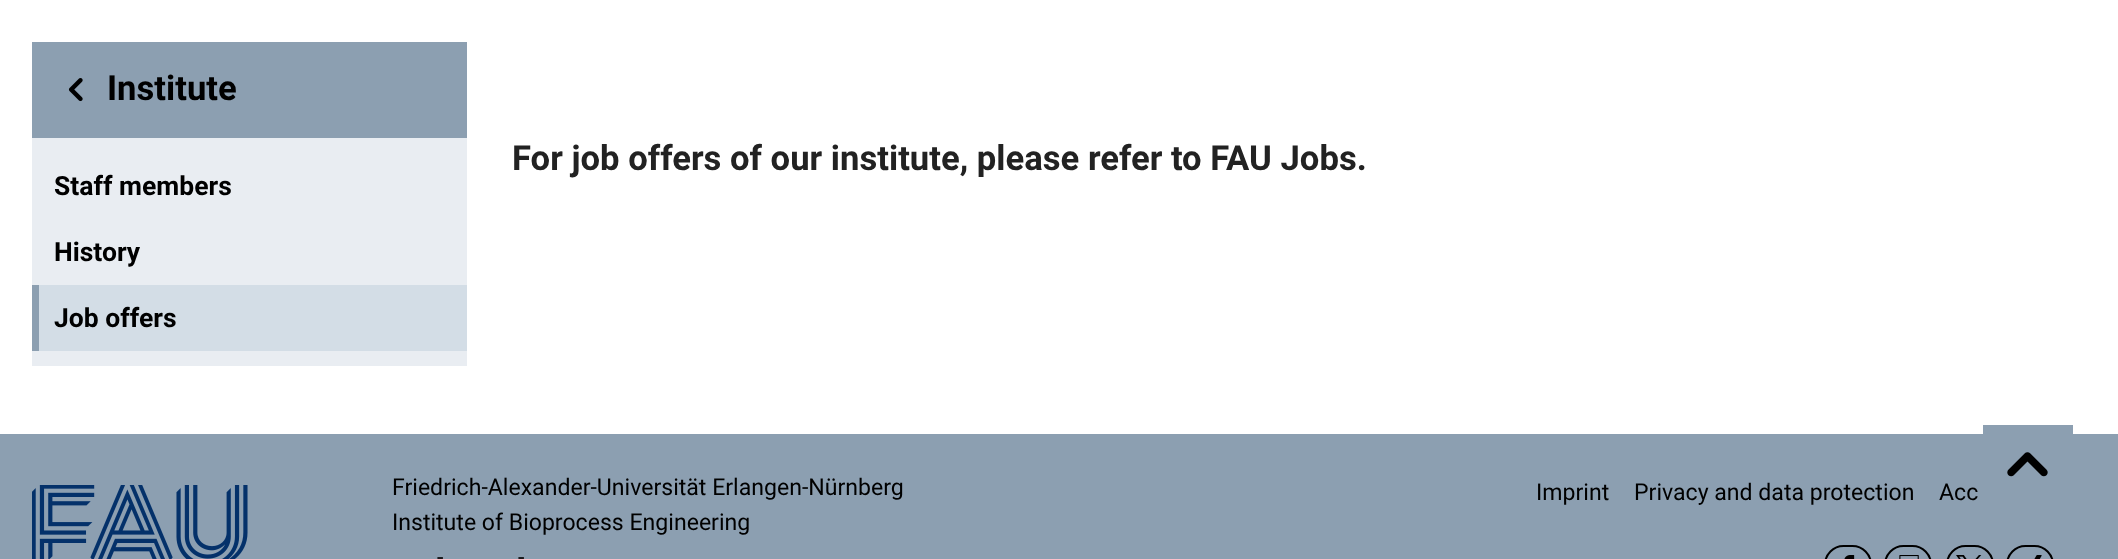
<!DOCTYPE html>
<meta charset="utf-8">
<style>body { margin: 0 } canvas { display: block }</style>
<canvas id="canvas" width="2118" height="559"></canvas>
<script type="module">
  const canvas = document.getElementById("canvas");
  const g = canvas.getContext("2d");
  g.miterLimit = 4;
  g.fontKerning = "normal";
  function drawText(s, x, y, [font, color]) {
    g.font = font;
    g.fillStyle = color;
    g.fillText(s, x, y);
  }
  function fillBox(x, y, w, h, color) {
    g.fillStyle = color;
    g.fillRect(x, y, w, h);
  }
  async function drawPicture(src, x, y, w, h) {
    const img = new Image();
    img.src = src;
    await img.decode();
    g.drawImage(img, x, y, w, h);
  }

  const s1 = ["bold 34.65px Roboto", "#000000"];
  const s2 = ["bold 26.5px Roboto", "#000000"];
  const s3 = ["bold 26.5px 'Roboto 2'", "#000000"];
  const s4 = ["bold 34.65px 'Roboto 2'", "#222222"];
  const s5 = ["23.1px Roboto", "#000000"];

  fillBox(0, 0, 2118, 559, "#FFFFFF");
  fillBox(32, 42, 435, 96, "#8C9FB1");
  await drawPicture("pic1.png", 68, 78, 15, 24);
  drawText("Institute", 107, 100, s1);
  fillBox(32, 138, 435, 228, "#E9EDF2");
  drawText("Staff members", 54, 195, s2);
  drawText("History", 54, 261, s2);
  fillBox(39, 285, 428, 66, "#D3DDE6");
  fillBox(32, 285, 7, 66, "#8C9FB1");
  drawText("Job offers", 54, 327, s3);
  drawText("For job offers of our institute, please refer to FAU Jobs.", 512, 170, s4);
  fillBox(0, 434, 2118, 125, "#8C9FB1");
  fillBox(1983, 425, 90, 9, "#8C9FB1");
  await drawPicture("pic2.png", 2007, 452, 41, 25);
  await drawPicture("pic3.png", 32, 485, 216, 74);
  drawText("Friedrich-Alexander-Universität Erlangen-Nürnberg", 392, 495, s5);
  drawText("Institute of Bioprocess Engineering", 392, 530, s5);
  drawText("-", 437, 565, s5);
  drawText("-", 518, 565, s5);
  drawText("Imprint", 1536, 500, s5);
  drawText("Privacy and data protection", 1634, 500, s5);
  drawText("Acc", 1939, 500, s5);
  g.beginPath();
  g.roundRect(1825, 546, 46, 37, 22);
  g.strokeStyle = "#000000";
  g.lineWidth = 2;
  g.stroke();
  await drawPicture("pic4.png", 1844, 555, 11, 4);
  g.beginPath();
  g.roundRect(1885, 546, 46, 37, 22);
  g.stroke();
  await drawPicture("pic5.png", 1899, 555, 20, 4);
  g.beginPath();
  g.roundRect(1947, 546, 46, 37, 22);
  g.stroke();
  await drawPicture("pic6.png", 1956, 555, 26, 4);
  g.beginPath();
  g.roundRect(2007, 546, 46, 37, 22);
  g.stroke();
  await drawPicture("pic7.png", 2034, 555, 8, 4);
</script>
